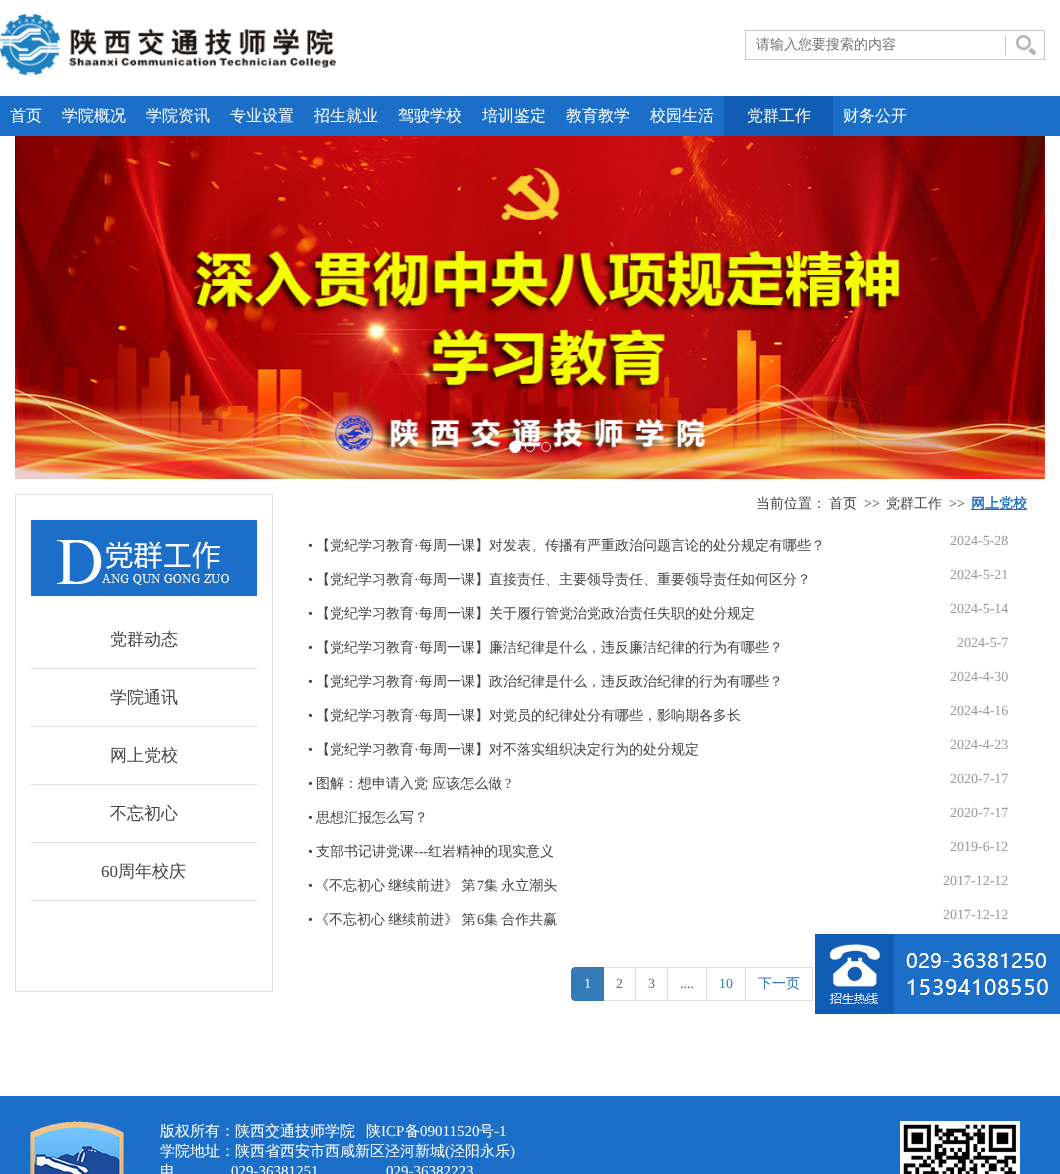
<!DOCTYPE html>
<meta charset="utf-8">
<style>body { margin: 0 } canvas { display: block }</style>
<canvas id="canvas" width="1060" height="1174"></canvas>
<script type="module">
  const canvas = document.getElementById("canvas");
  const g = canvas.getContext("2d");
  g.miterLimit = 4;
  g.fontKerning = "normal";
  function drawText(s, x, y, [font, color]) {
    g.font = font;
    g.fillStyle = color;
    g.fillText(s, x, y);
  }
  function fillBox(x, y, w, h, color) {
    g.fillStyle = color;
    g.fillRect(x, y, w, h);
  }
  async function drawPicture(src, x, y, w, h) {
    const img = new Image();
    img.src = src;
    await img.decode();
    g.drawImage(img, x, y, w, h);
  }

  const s1 = ["500 14px WenQuanYi Zen Hei", "#757575"];
  const s2 = ["500 16px WenQuanYi Zen Hei", "#FFFFFF"];
  const s3 = ["500 17px WenQuanYi Zen Hei", "#444444"];
  const s4 = ["17px Liberation Serif", "#444444"];
  const s5 = ["500 14px WenQuanYi Zen Hei", "#444444"];
  const s6 = ["14px Liberation Serif", "#444444"];
  const s7 = ["bold 14px WenQuanYi Zen Hei", "#1B6FC9"];
  const s8 = ["14px Liberation Serif", "#999999"];
  const s9 = ["14px Liberation Serif", "#FFFFFF"];
  const s10 = ["14px Liberation Serif", "#337AB7"];
  const s11 = ["500 14px WenQuanYi Zen Hei", "#337AB7"];
  const s12 = ["500 15px WenQuanYi Zen Hei", "#FFFFFF"];
  const s13 = ["15px Liberation Serif", "#FFFFFF"];

  fillBox(0, 0, 1060, 1174, "#FFFFFF");
  await drawPicture("pic1.png", 0, 14, 336, 61);
  g.strokeStyle = "#C9C9C9";
  g.strokeRect(745.5, 30.5, 299, 29);
  drawText("请输入您要搜索的内容", 756, 49, s1);
  fillBox(1005, 35, 1, 20, "#C9C9C9");
  await drawPicture("pic2.png", 1016, 35, 20, 20);
  fillBox(0, 96, 1060, 40, "#1B6FC9");
  drawText("首页", 10, 121, s2);
  drawText("学院概况", 62, 121, s2);
  drawText("学院资讯", 146, 121, s2);
  drawText("专业设置", 230, 121, s2);
  drawText("招生就业", 314, 121, s2);
  drawText("驾驶学校", 398, 121, s2);
  drawText("培训鉴定", 482, 121, s2);
  drawText("教育教学", 566, 121, s2);
  drawText("校园生活", 650, 121, s2);
  fillBox(724, 96, 109, 40, "#115DB5");
  drawText("党群工作", 747, 121, s2);
  drawText("财务公开", 843, 121, s2);
  await drawPicture("pic3.png", 15, 136, 1030, 343);
  g.beginPath();
  g.arc(515, 447, 5.5, 0, Math.PI * 2);
  g.fill();
  g.strokeStyle = "#FFFFFF";
  g.stroke();
  g.beginPath();
  g.arc(530, 447, 4.5, 0, Math.PI * 2);
  g.stroke();
  g.beginPath();
  g.arc(546, 447, 4.5, 0, Math.PI * 2);
  g.stroke();
  g.strokeStyle = "#DDDFE0";
  g.strokeRect(15.5, 494.5, 257, 497);
  fillBox(31, 520, 226, 76, "#1B6FC9");
  await drawPicture("pic4.png", 57, 540, 172, 45);
  fillBox(31, 668, 226, 1, "#DDDFE0");
  drawText("党群动态", 110, 645, s3);
  fillBox(31, 726, 226, 1, "#DDDFE0");
  drawText("学院通讯", 110, 703, s3);
  fillBox(31, 784, 226, 1, "#DDDFE0");
  drawText("网上党校", 110, 761, s3);
  fillBox(31, 842, 226, 1, "#DDDFE0");
  drawText("不忘初心", 110, 819, s3);
  fillBox(31, 900, 226, 1, "#DDDFE0");
  drawText("60", 101, 877, s4);
  drawText("周年校庆", 118, 877, s3);
  drawText("当前位置：", 756, 508, s5);
  drawText("首页", 829, 508, s5);
  drawText(">>", 864, 508, s6);
  drawText("党群工作", 886, 508, s5);
  drawText(">>", 949, 508, s6);
  fillBox(971, 509, 56, 1, "#1B6FC9");
  drawText("网上党校", 971, 508, s7);
  drawText("•", 308, 550, s6);
  drawText("【党纪学习教育", 316, 550, s5);
  drawText("·", 414, 550, s6);
  drawText("每周一课】对发表、传播有严重政治问题言论的处分规定有哪些？", 419, 550, s5);
  drawText("2024-5-28", 950, 545, s8);
  drawText("•", 308, 584, s6);
  drawText("【党纪学习教育", 316, 584, s5);
  drawText("·", 414, 584, s6);
  drawText("每周一课】直接责任、主要领导责任、重要领导责任如何区分？", 419, 584, s5);
  drawText("2024-5-21", 950, 579, s8);
  drawText("•", 308, 618, s6);
  drawText("【党纪学习教育", 316, 618, s5);
  drawText("·", 414, 618, s6);
  drawText("每周一课】关于履行管党治党政治责任失职的处分规定", 419, 618, s5);
  drawText("2024-5-14", 950, 613, s8);
  drawText("•", 308, 652, s6);
  drawText("【党纪学习教育", 316, 652, s5);
  drawText("·", 414, 652, s6);
  drawText("每周一课】廉洁纪律是什么，违反廉洁纪律的行为有哪些？", 419, 652, s5);
  drawText("2024-5-7", 957, 647, s8);
  drawText("•", 308, 686, s6);
  drawText("【党纪学习教育", 316, 686, s5);
  drawText("·", 414, 686, s6);
  drawText("每周一课】政治纪律是什么，违反政治纪律的行为有哪些？", 419, 686, s5);
  drawText("2024-4-30", 950, 681, s8);
  drawText("•", 308, 720, s6);
  drawText("【党纪学习教育", 316, 720, s5);
  drawText("·", 414, 720, s6);
  drawText("每周一课】对党员的纪律处分有哪些，影响期各多长", 419, 720, s5);
  drawText("2024-4-16", 950, 715, s8);
  drawText("•", 308, 754, s6);
  drawText("【党纪学习教育", 316, 754, s5);
  drawText("·", 414, 754, s6);
  drawText("每周一课】对不落实组织决定行为的处分规定", 419, 754, s5);
  drawText("2024-4-23", 950, 749, s8);
  drawText("•", 308, 788, s6);
  drawText("图解：想申请入党 应该怎么做", 316, 788, s5);
  drawText("?", 505, 788, s6);
  drawText("2020-7-17", 950, 783, s8);
  drawText("•", 308, 822, s6);
  drawText("思想汇报怎么写？", 316, 822, s5);
  drawText("2020-7-17", 950, 817, s8);
  drawText("•", 308, 856, s6);
  drawText("支部书记讲党课", 316, 856, s5);
  drawText("---", 414, 856, s6);
  drawText("红岩精神的现实意义", 428, 856, s5);
  drawText("2019-6-12", 950, 851, s8);
  drawText("•", 308, 890, s6);
  g.wordSpacing = "-1px";
  drawText("《不忘初心 继续前进》 第", 315, 890, s5);
  g.wordSpacing = "0px";
  drawText("7", 477, 890, s6);
  g.wordSpacing = "-1px";
  drawText("集 永立潮头", 484, 890, s5);
  g.wordSpacing = "0px";
  drawText("2017-12-12", 943, 885, s8);
  drawText("•", 308, 924, s6);
  g.wordSpacing = "-1px";
  drawText("《不忘初心 继续前进》 第", 315, 924, s5);
  g.wordSpacing = "0px";
  drawText("6", 477, 924, s6);
  g.wordSpacing = "-1px";
  drawText("集 合作共赢", 484, 924, s5);
  g.wordSpacing = "0px";
  drawText("2017-12-12", 943, 919, s8);
  g.strokeStyle = "#DDDDDD";
  g.strokeRect(603.5, 967.5, 32, 33);
  g.fillStyle = "#337AB7";
  g.beginPath();
  g.roundRect(571.5, 967.5, 32, 33, [3.5, 0, 0, 3.5]);
  g.fill();
  g.strokeStyle = "#337AB7";
  g.stroke();
  drawText("1", 584, 988, s9);
  drawText("2", 616, 988, s10);
  g.strokeStyle = "#DDDDDD";
  g.strokeRect(635.5, 967.5, 32, 33);
  drawText("3", 648, 988, s10);
  g.strokeRect(667.5, 967.5, 39, 33);
  drawText("....", 680, 988, s10);
  g.strokeRect(706.5, 967.5, 39, 33);
  drawText("10", 719, 988, s10);
  g.strokeRect(745.5, 967.5, 67, 33);
  drawText("下一页", 758, 988, s11);
  await drawPicture("pic5.png", 815, 934, 245, 80);
  fillBox(0, 1096, 1060, 78, "#1B6FC9");
  await drawPicture("pic6.png", 30, 1121, 94, 53);
  drawText("版权所有：陕西交通技师学院", 160, 1136, s12);
  drawText("陕", 366, 1136, s12);
  drawText("ICP", 381, 1136, s13);
  drawText("备", 405, 1136, s12);
  drawText("09011520", 420, 1136, s13);
  drawText("号", 479, 1136, s12);
  drawText("-1", 494, 1136, s13);
  drawText("学院地址：陕西省西安市西咸新区泾河新城", 160, 1156, s12);
  drawText("(", 445, 1156, s13);
  drawText("泾阳永乐", 450, 1156, s12);
  drawText(")", 510, 1156, s13);
  drawText("电", 160, 1176, s12);
  drawText("029-36381251", 231, 1176, s13);
  drawText("029-36382223", 386, 1176, s13);
  await drawPicture("pic7.png", 900, 1121, 120, 53);
</script>
